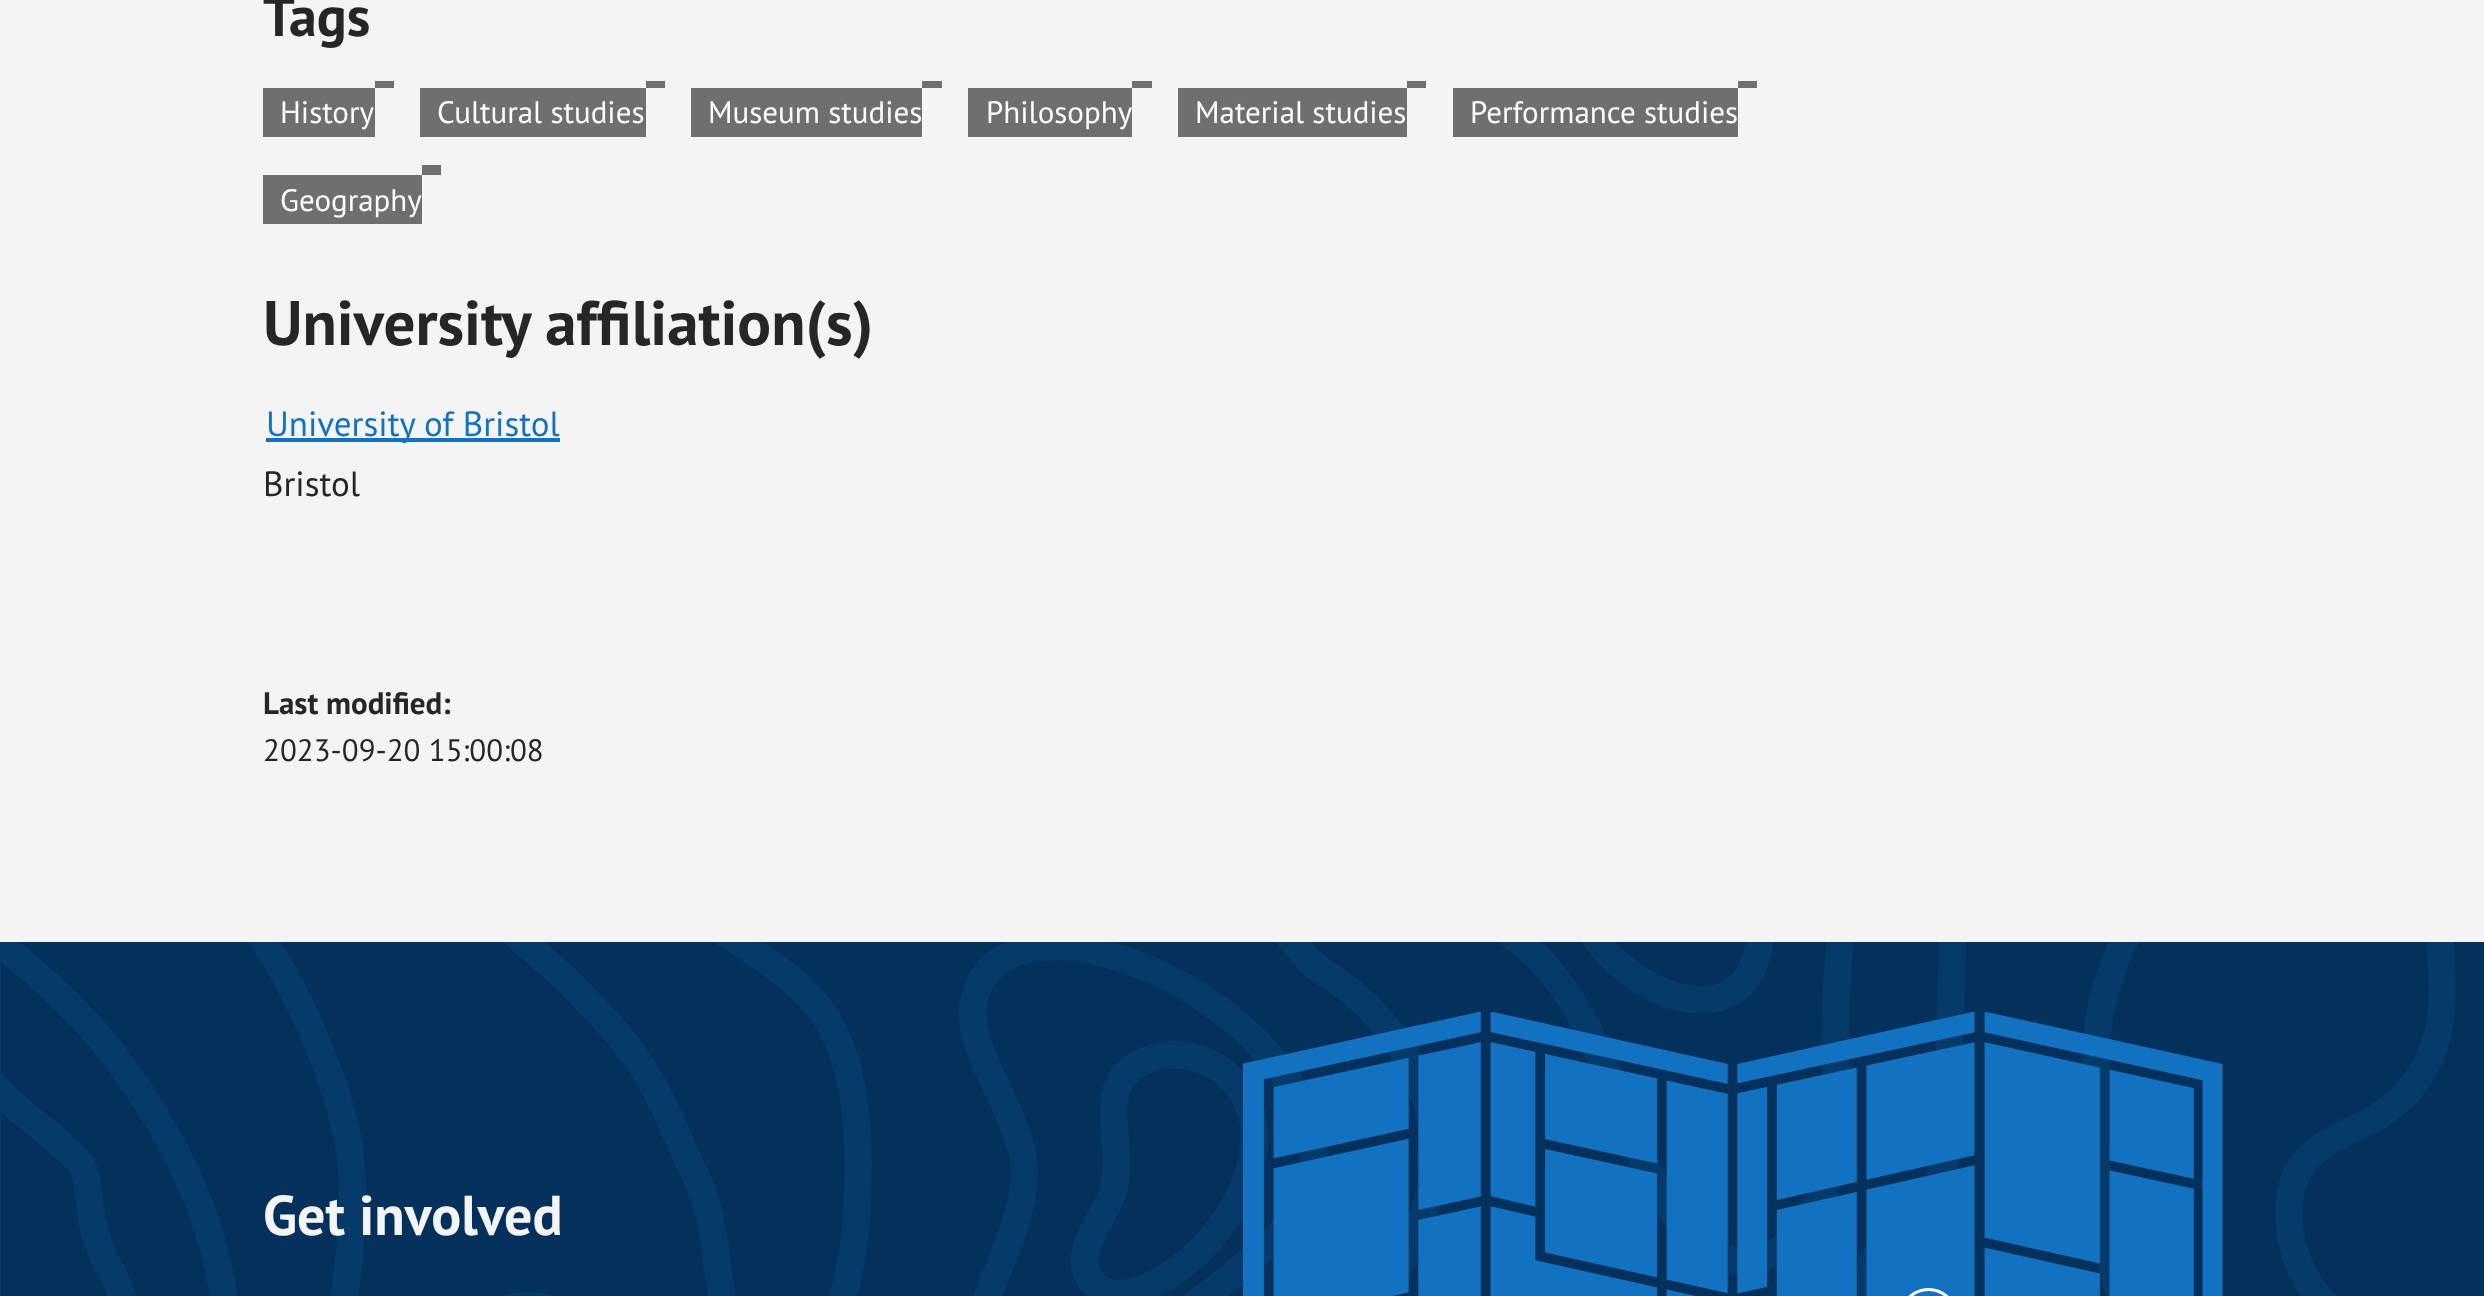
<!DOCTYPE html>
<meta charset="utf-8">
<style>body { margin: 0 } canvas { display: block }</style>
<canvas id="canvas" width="2484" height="1296"></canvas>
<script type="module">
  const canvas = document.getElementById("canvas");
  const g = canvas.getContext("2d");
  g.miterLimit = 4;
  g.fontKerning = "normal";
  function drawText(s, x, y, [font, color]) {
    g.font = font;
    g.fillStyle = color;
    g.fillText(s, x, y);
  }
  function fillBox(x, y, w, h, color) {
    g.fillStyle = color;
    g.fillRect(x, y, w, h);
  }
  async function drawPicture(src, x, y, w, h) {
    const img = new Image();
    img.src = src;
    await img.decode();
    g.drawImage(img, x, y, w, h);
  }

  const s1 = ["bold 56px PT Sans", "#262626"];
  const s2 = ["31px PT Sans", "#FFFFFF"];
  const s3 = ["bold 63px PT Sans", "#262626"];
  const s4 = ["35px PT Sans", "#1371C2"];
  const s5 = ["35px PT Sans", "#262626"];
  const s6 = ["bold 31px PT Sans", "#262626"];
  const s7 = ["31px PT Sans", "#262626"];
  const s8 = ["bold 56px PT Sans", "#F4F4F4"];

  fillBox(0, 0, 2484, 1296, "#F4F4F4");
  drawText("Tags", 263, 36, s1);
  fillBox(263, 88, 112, 49, "#6F6F6F");
  drawText("History", 280, 123, s2);
  fillBox(375, 81, 19, 7, "#6F6F6F");
  fillBox(420, 88, 226, 49, "#6F6F6F");
  drawText("Cultural studies", 437, 123, s2);
  fillBox(646, 81, 19, 7, "#6F6F6F");
  fillBox(691, 88, 231, 49, "#6F6F6F");
  drawText("Museum studies", 708, 123, s2);
  fillBox(922, 81, 20, 7, "#6F6F6F");
  fillBox(968, 88, 164, 49, "#6F6F6F");
  drawText("Philosophy", 986, 123, s2);
  fillBox(1132, 81, 20, 7, "#6F6F6F");
  fillBox(1178, 88, 229, 49, "#6F6F6F");
  drawText("Material studies", 1195, 123, s2);
  fillBox(1407, 81, 19, 7, "#6F6F6F");
  fillBox(1453, 88, 285, 49, "#6F6F6F");
  drawText("Performance studies", 1470, 123, s2);
  fillBox(1738, 81, 19, 7, "#6F6F6F");
  fillBox(263, 175, 159, 49, "#6F6F6F");
  drawText("Geography", 280, 211, s2);
  fillBox(422, 165, 19, 10, "#6F6F6F");
  drawText("University affiliation(s)", 263, 345, s3);
  fillBox(266, 438, 294, 4, "#1371C2");
  drawText("University of Bristol", 266, 436, s4);
  drawText("Bristol", 263, 496, s5);
  drawText("Last modified:", 263, 714, s6);
  drawText("2023-09-20 15:00:08", 263, 761, s7);
  fillBox(0, 942, 2484, 354, "#063A69");
  await drawPicture("pic1.png", 1, 942, 2483, 354);
  drawText("Get involved", 263, 1235, s8);
  await drawPicture("pic2.png", 1243, 1012, 980, 284);
</script>
